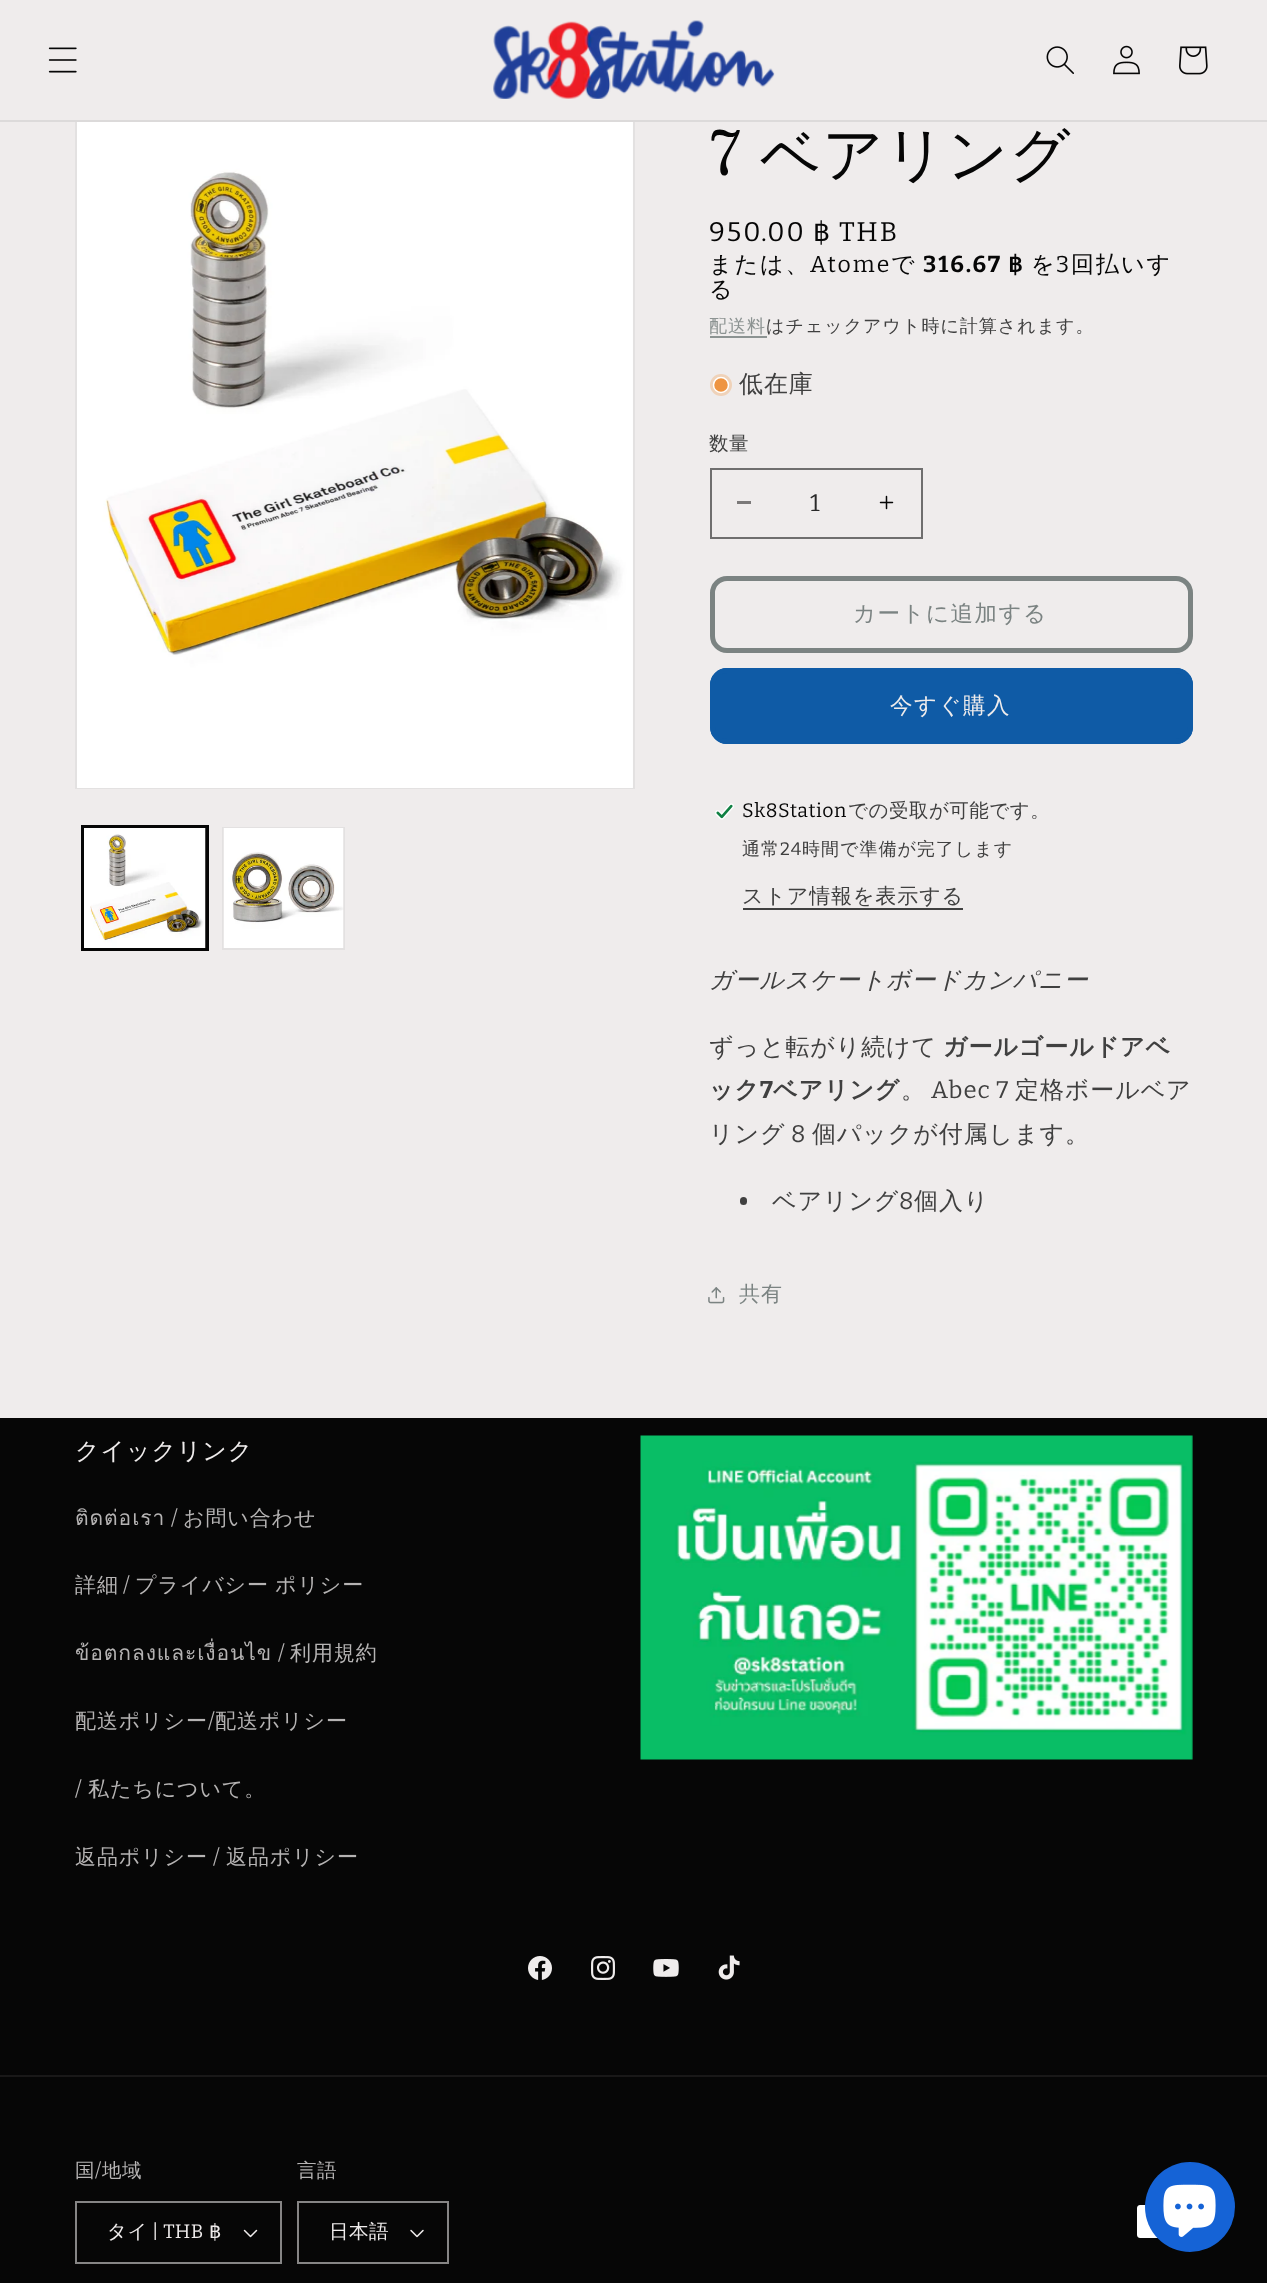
<!DOCTYPE html>
<meta charset="utf-8">
<style>body { margin: 0 } canvas { display: block }</style>
<canvas id="canvas" width="1267" height="2283"></canvas>
<script type="module">
  const canvas = document.getElementById("canvas");
  const g = canvas.getContext("2d");
  g.miterLimit = 4;
  g.fontKerning = "normal";
  function drawText(s, x, y, [font, color]) {
    g.font = font;
    g.fillStyle = color;
    g.fillText(s, x, y);
  }
  function fillBox(x, y, w, h, color) {
    g.fillStyle = color;
    g.fillRect(x, y, w, h);
  }
  function fillRounded(x, y, w, h, r, color) {
    g.fillStyle = color;
    g.beginPath();
    g.roundRect(x, y, w, h, r);
    g.fill();
  }
  async function drawPicture(src, x, y, w, h) {
    const img = new Image();
    img.src = src;
    await img.decode();
    g.drawImage(img, x, y, w, h);
  }

  const s1 = ["60px Besley", "#060606"];
  const s2 = ["500 60px WenQuanYi Zen Hei", "#060606"];
  const s3 = ["27px Bitter", "#060606"];
  const s4 = ["27px DejaVu Sans", "#060606"];
  const s5 = ["500 23px WenQuanYi Zen Hei", "#060606"];
  const s6 = ["23px Bitter", "#060606"];
  const s7 = ["bold 23px Bitter", "#060606"];
  const s8 = ["bold 23px DejaVu Sans", "#060606"];
  const s9 = ["500 18px WenQuanYi Zen Hei", "#8C9392"];
  const s10 = ["500 18px WenQuanYi Zen Hei", "#404040"];
  const s11 = ["500 24px WenQuanYi Zen Hei", "#404040"];
  const s12 = ["500 19.5px WenQuanYi Zen Hei", "#404040"];
  const s13 = ["24px Bitter", "#292929"];
  const s14 = ["500 22.5px WenQuanYi Zen Hei", "#7B8382"];
  const s15 = ["500 22.5px WenQuanYi Zen Hei", "#EFECEC"];
  const s16 = ["19.5px Bitter", "#060606"];
  const s17 = ["18px Bitter", "#404040"];
  const s18 = ["500 21px WenQuanYi Zen Hei", "#404040"];
  const s19 = ["italic 500 24px WenQuanYi Zen Hei", "#404040"];
  const s20 = ["bold 24px WenQuanYi Zen Hei", "#404040"];
  const s21 = ["bold 24px Bitter", "#404040"];
  const s22 = ["24px Bitter", "#404040"];
  const s23 = ["500 21px WenQuanYi Zen Hei", "#7B8382"];
  const s24 = ["500 24px WenQuanYi Zen Hei", "#EFECEC"];
  const s25 = ["21px Loma", "#B5B3B3"];
  const s26 = ["21px Bitter", "#B5B3B3"];
  const s27 = ["500 21px WenQuanYi Zen Hei", "#B5B3B3"];
  const s28 = ["500 19.5px WenQuanYi Zen Hei", "#B5B3B3"];
  const s29 = ["19.5px Bitter", "#B5B3B3"];
  const s30 = ["500 19.5px WenQuanYi Zen Hei", "#EFECEC"];
  const s31 = ["19.5px Bitter", "#EFECEC"];
  const s32 = ["19.5px DejaVu Sans", "#EFECEC"];

  fillBox(0, 0, 1267, 2283, "#EFECEC");
  g.strokeStyle = "#E3E1E1";
  g.lineWidth = 2;
  g.strokeRect(76, 46, 558, 742);
  fillBox(75, 45, 560, 75, "#EFECEC");
  fillBox(0, 120, 1267, 2, "#DCDADA");
  await drawPicture("pic1.png", 48, 47, 29, 26);
  await drawPicture("pic2.png", 493, 20, 282, 79);
  await drawPicture("pic3.png", 1046, 46, 28, 28);
  await drawPicture("pic4.png", 1113, 45, 27, 30);
  await drawPicture("pic5.png", 1179, 46, 29, 29);
  await drawPicture("pic6.png", 77, 122, 556, 666);
  g.strokeStyle = "#060606";
  g.strokeRect(82, 826, 126, 124);
  g.strokeRect(84, 828, 122, 121);
  await drawPicture("pic7.png", 84, 828, 122, 120);
  g.strokeStyle = "#E3E1E1";
  g.strokeRect(223, 828, 121, 121);
  await drawPicture("pic8.png", 223, 828, 121, 120);
  g.letterSpacing = "0.9px";
  drawText("7", 709, 175, s1);
  drawText("ベアリング", 760, 175, s2);
  g.letterSpacing = "2px";
  drawText("950.00", 709, 241, s3);
  drawText("฿", 813, 241, s4);
  drawText("THB", 839, 241, s3);
  drawText("または、", 709, 272, s5);
  drawText("Atome", 810, 272, s6);
  drawText("で", 891, 272, s5);
  drawText("316.67", 923, 272, s7);
  drawText("฿", 1008, 272, s8);
  drawText("を", 1031, 272, s5);
  drawText("3", 1056, 272, s6);
  drawText("回払いす", 1071, 272, s5);
  drawText("る", 709, 297, s5);
  g.letterSpacing = "1px";
  drawText("配送料", 709, 332, s9);
  fillBox(710, 336, 57, 2, "#8C9392");
  drawText("はチェックアウト時に計算されます。", 766, 332, s10);
  g.fillStyle = "#EFD2B9";
  g.beginPath();
  g.arc(721, 385, 11, 0, Math.PI * 2);
  g.fill();
  g.fillStyle = "#EE9441";
  g.beginPath();
  g.arc(721, 385, 7.5, 0, Math.PI * 2);
  g.fill();
  g.strokeStyle = "#FFFFFF";
  g.lineWidth = 1.5;
  g.stroke();
  g.letterSpacing = "0.9px";
  drawText("低在庫", 739, 392, s11);
  g.letterSpacing = "0.5px";
  drawText("数量", 709, 450, s12);
  fillBox(737, 501, 14, 3, "#7B7979");
  await drawPicture("pic9.png", 879, 495, 15, 15);
  g.strokeStyle = "#6F6E6E";
  g.lineWidth = 2;
  g.strokeRect(711, 469, 211, 69);
  g.letterSpacing = "0px";
  drawText("1", 810, 511, s13);
  g.beginPath();
  g.roundRect(712.5, 578.5, 478, 72, 14.5);
  g.strokeStyle = "#7B8382";
  g.lineWidth = 5;
  g.stroke();
  g.letterSpacing = "1.5px";
  drawText("カートに追加する", 853, 621, s14);
  fillRounded(710, 668, 483, 76, 17, "#0F5BA6");
  g.beginPath();
  g.roundRect(712.5, 670.5, 478, 71, 14.5);
  g.strokeStyle = "#0F5BA6";
  g.stroke();
  drawText("今すぐ購入", 890, 713, s15);
  await drawPicture("pic10.png", 715, 803, 19, 17);
  g.letterSpacing = "0.5px";
  drawText("Sk8Station", 742, 817, s16);
  drawText("での受取が可能です。", 848, 817, s12);
  g.letterSpacing = "1px";
  drawText("通常", 742, 855, s10);
  drawText("24", 780, 855, s17);
  drawText("時間で準備が完了します", 802, 855, s10);
  g.letterSpacing = "0.9px";
  drawText("ストア情報を表示する", 742, 903, s18);
  fillBox(743, 908, 220, 2, "#404040");
  drawText("ガールスケートボードカンパニー", 709, 988, s19);
  drawText("ずっと転がり続けて", 709, 1055, s11);
  drawText("ガールゴールドアベ", 943, 1055, s20);
  drawText("ック", 709, 1098, s20);
  drawText("7", 760, 1098, s21);
  drawText("ベアリング", 773, 1098, s20);
  drawText("。", 901, 1098, s11);
  drawText("Abec 7", 931, 1098, s22);
  drawText("定格ボールベア", 1015, 1098, s11);
  drawText("リング", 709, 1142, s11);
  drawText("8", 791, 1142, s22);
  drawText("個パックが付属します。", 812, 1142, s11);
  fillRounded(740, 1197, 7, 8, 3.5, "#404040");
  drawText("ベアリング", 772, 1209, s11);
  drawText("8", 899, 1209, s22);
  drawText("個入り", 914, 1209, s11);
  await drawPicture("pic11.png", 708, 1287, 17, 17);
  drawText("共有", 739, 1301, s23);
  fillBox(0, 1418, 1267, 865, "#060606");
  drawText("クイックリンク", 75, 1459, s24);
  drawText("ติดต่อเรา", 75, 1525, s25);
  drawText("/", 171, 1525, s26);
  drawText("お問い合わせ", 183, 1525, s27);
  drawText("詳細", 75, 1592, s27);
  drawText("/", 123, 1592, s26);
  g.wordSpacing = "-1px";
  drawText("プライバシー ポリシー", 135, 1592, s27);
  g.wordSpacing = "0px";
  drawText("ข้อตกลงและเงื่อนไข", 75, 1660, s25);
  drawText("/", 278, 1660, s26);
  drawText("利用規約", 290, 1660, s27);
  drawText("配送ポリシー", 75, 1728, s27);
  drawText("/", 208, 1728, s26);
  drawText("配送ポリシー", 215, 1728, s27);
  drawText("/", 75, 1796, s26);
  drawText("私たちについて。", 88, 1796, s27);
  drawText("返品ポリシー", 75, 1864, s27);
  drawText("/", 213, 1864, s26);
  drawText("返品ポリシー", 226, 1864, s27);
  await drawPicture("pic12.png", 640, 1435, 553, 325);
  await drawPicture("pic13.png", 528, 1956, 24, 24);
  await drawPicture("pic14.png", 591, 1956, 24, 24);
  await drawPicture("pic15.png", 653, 1959, 26, 18);
  await drawPicture("pic16.png", 718, 1955, 22, 25);
  fillBox(0, 2075, 1267, 2, "#191818");
  g.letterSpacing = "0.5px";
  drawText("国", 75, 2177, s28);
  drawText("/", 95, 2177, s29);
  drawText("地域", 102, 2177, s28);
  await drawPicture("pic17.png", 243, 2229, 15, 9);
  g.strokeStyle = "#868585";
  g.lineWidth = 2;
  g.strokeRect(76, 2202, 205, 61);
  drawText("タイ", 107, 2238, s30);
  drawText("| THB", 152, 2238, s31);
  drawText("฿", 209, 2238, s32);
  drawText("言語", 297, 2177, s28);
  await drawPicture("pic18.png", 410, 2229, 14, 9);
  g.strokeRect(298, 2202, 150, 61);
  drawText("日本語", 329, 2238, s30);
  await drawPicture("pic19.png", 1137, 2205, 21, 33);
  g.fillStyle = "#1563D6";
  g.beginPath();
  g.arc(1190, 2207, 45, 0, Math.PI * 2);
  g.fill();
  await drawPicture("pic20.png", 1163, 2184, 53, 53);
</script>
